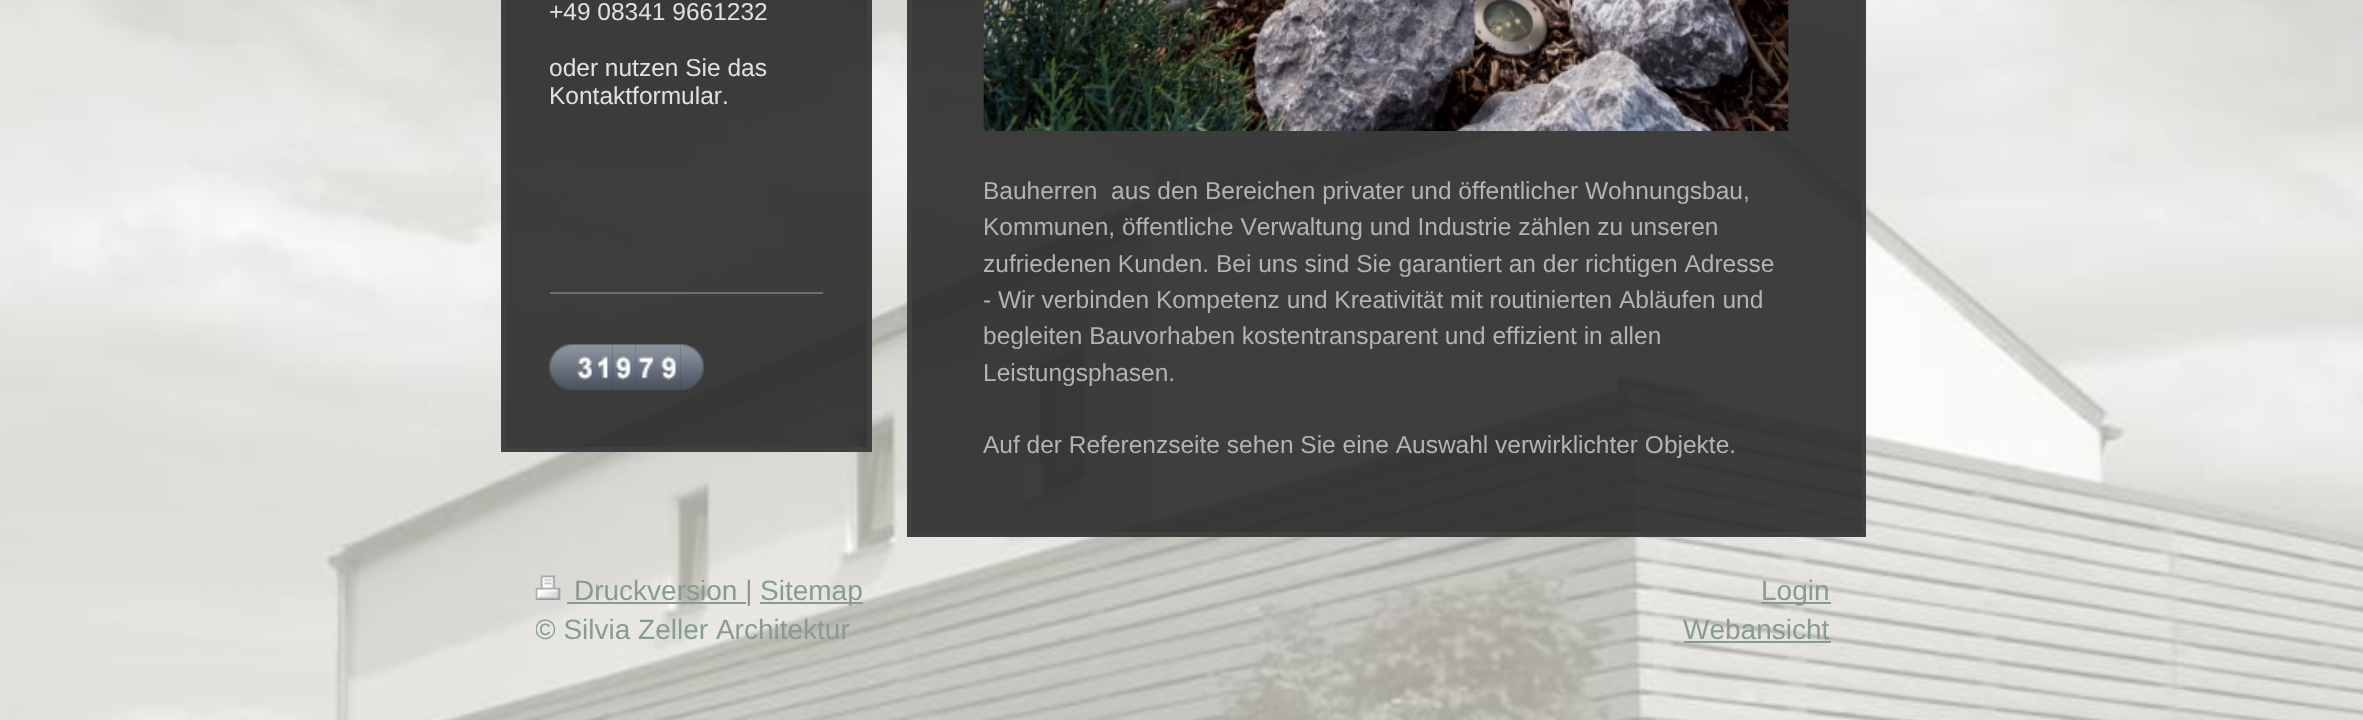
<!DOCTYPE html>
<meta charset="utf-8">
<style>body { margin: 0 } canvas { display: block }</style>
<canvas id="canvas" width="2363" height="720"></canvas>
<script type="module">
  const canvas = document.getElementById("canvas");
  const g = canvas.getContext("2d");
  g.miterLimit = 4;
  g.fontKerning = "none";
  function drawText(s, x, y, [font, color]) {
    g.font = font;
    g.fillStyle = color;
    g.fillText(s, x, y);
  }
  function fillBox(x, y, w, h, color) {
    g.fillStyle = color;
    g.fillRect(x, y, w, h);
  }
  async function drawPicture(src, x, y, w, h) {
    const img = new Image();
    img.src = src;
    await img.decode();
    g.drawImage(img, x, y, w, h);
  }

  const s1 = ["24.5px Liberation Sans", "#E1E1E1"];
  const s2 = ["24.5px Liberation Sans", "#B3B3B3"];
  const s3 = ["28px Liberation Sans", "#859C8E"];

  fillBox(0, 0, 2363, 720, "#FFFFFF");
  await drawPicture("pic1.png", 0, 0, 2363, 720);
  g.fillStyle = "rgba(41, 41, 41, 0.9)";
  g.beginPath();
  g.rect(503.5, -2.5, 366, 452);
  g.fill();
  g.strokeStyle = "#404040";
  g.lineWidth = 5;
  g.stroke();
  drawText("+49 08341 9661232", 549, 20, s1);
  drawText("oder nutzen Sie das", 549, 76, s1);
  drawText("Kontaktformular.", 549, 104, s1);
  fillBox(550, 292, 273, 2, "#6E6E6E");
  await drawPicture("pic2.png", 549, 344, 25, 46);
  await drawPicture("pic3.png", 574, 344, 21, 46);
  await drawPicture("pic4.png", 595, 344, 18, 46);
  await drawPicture("pic5.png", 612, 344, 24, 46);
  await drawPicture("pic6.png", 635, 344, 23, 46);
  await drawPicture("pic7.png", 658, 344, 23, 46);
  await drawPicture("pic8.png", 680, 344, 24, 46);
  g.fillStyle = "rgba(41, 41, 41, 0.9)";
  g.beginPath();
  g.rect(909.5, -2.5, 954, 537);
  g.fill();
  g.stroke();
  await drawPicture("pic9.png", 983, 0, 806, 131);
  drawText("Bauherren  aus den Bereichen privater und öffentlicher Wohnungsbau,", 983, 199, s2);
  drawText("Kommunen, öffentliche Verwaltung und Industrie zählen zu unseren", 983, 235, s2);
  drawText("zufriedenen Kunden. Bei uns sind Sie garantiert an der richtigen Adresse", 983, 272, s2);
  drawText("- Wir verbinden Kompetenz und Kreativität mit routinierten Abläufen und", 983, 308, s2);
  drawText("begleiten Bauvorhaben kostentransparent und effizient in allen", 983, 344, s2);
  drawText("Leistungsphasen.", 983, 381, s2);
  drawText("Auf der Referenzseite sehen Sie eine Auswahl verwirklichter Objekte.", 983, 453, s2);
  await drawPicture("pic10.png", 535, 575, 26, 25);
  fillBox(567, 602, 179, 2, "#859C8E");
  drawText("Druckversion |", 574, 600, s3);
  fillBox(760, 602, 103, 2, "#859C8E");
  drawText("Sitemap", 760, 600, s3);
  g.save();
  g.beginPath();
  g.rect(536, 572, 1295, 79);
  g.clip();
  drawText("© Silvia Zeller Architektur", 535, 639, s3);
  g.restore();
  fillBox(1761, 602, 70, 2, "#859C8E");
  drawText("Login", 1761, 600, s3);
  drawText("Webansicht", 1683, 639, s3);
  fillBox(1684, 641, 147, 2, "#859C8E");
</script>
